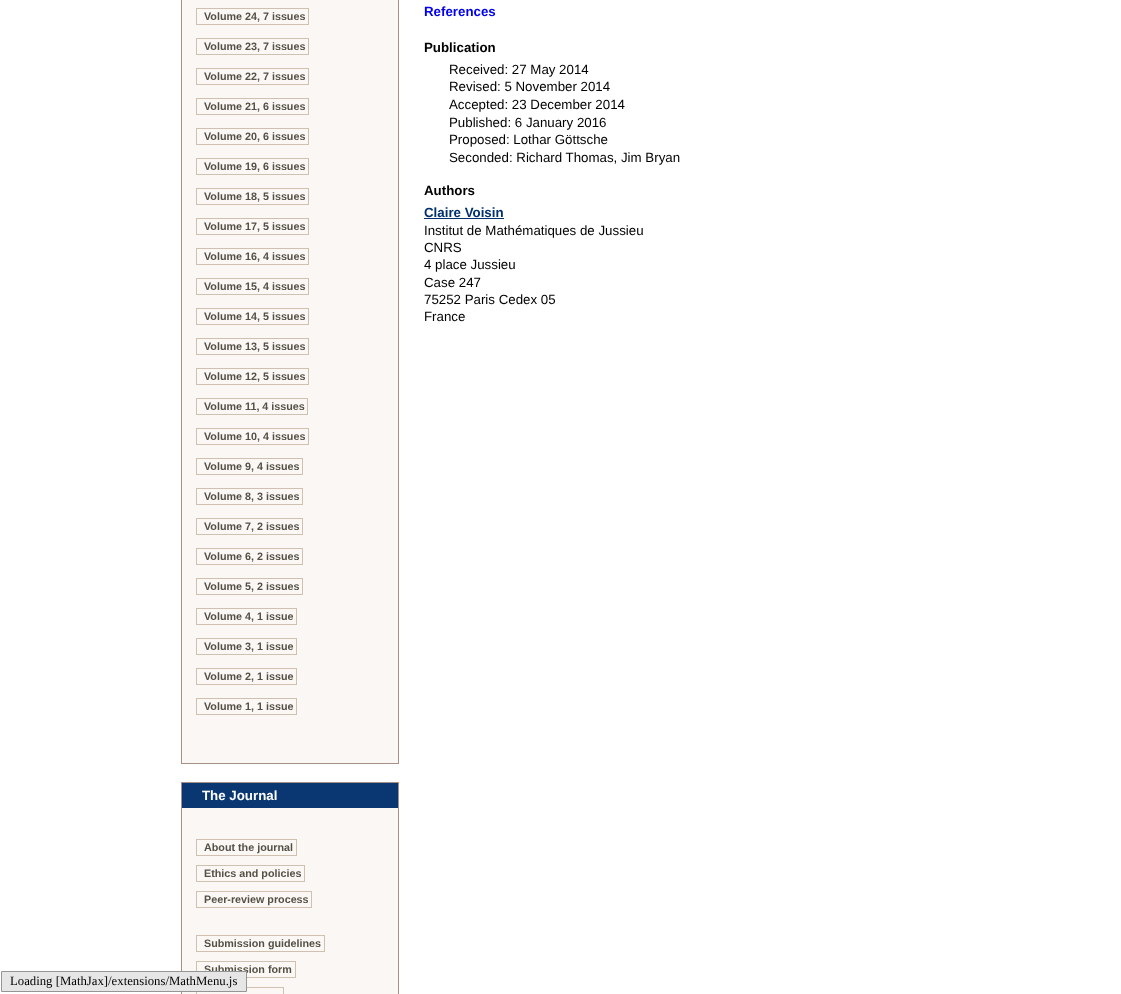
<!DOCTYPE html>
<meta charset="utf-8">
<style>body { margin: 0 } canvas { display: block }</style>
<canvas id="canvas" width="1121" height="994"></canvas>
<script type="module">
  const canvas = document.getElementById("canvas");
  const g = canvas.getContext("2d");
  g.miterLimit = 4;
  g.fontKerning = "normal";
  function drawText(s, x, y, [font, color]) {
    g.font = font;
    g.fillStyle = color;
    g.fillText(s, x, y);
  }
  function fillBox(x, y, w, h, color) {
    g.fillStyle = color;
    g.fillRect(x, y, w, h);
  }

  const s1 = ["bold 10.75px Liberation Sans", "#545045"];
  const s2 = ["bold 13.3px Liberation Sans", "#FFFFFF"];
  const s3 = ["bold 13.3px Liberation Sans", "#0000EE"];
  const s4 = ["bold 13.3px Liberation Sans", "#000000"];
  const s5 = ["13.3px Liberation Sans", "#000000"];
  const s6 = ["bold 13.3px Liberation Sans", "#003070"];
  const s7 = ["12.75px Liberation Serif", "#000000"];

  fillBox(0, 0, 1121, 994, "#FFFFFF");
  fillBox(182, 0, 216, 763, "#FAF7F5");
  fillBox(398, 0, 1, 764, "#A59086");
  fillBox(181, 0, 1, 745, "#A59086");
  g.strokeStyle = "#D0C0B0";
  g.strokeRect(196.5, 8.5, 112, 16);
  drawText("Volume 24, 7 issues", 204, 20, s1);
  g.strokeRect(196.5, 38.5, 112, 16);
  drawText("Volume 23, 7 issues", 204, 50, s1);
  g.strokeRect(196.5, 68.5, 112, 16);
  drawText("Volume 22, 7 issues", 204, 80, s1);
  g.strokeRect(196.5, 98.5, 112, 16);
  drawText("Volume 21, 6 issues", 204, 110, s1);
  g.strokeRect(196.5, 128.5, 112, 16);
  drawText("Volume 20, 6 issues", 204, 140, s1);
  g.strokeRect(196.5, 158.5, 112, 16);
  drawText("Volume 19, 6 issues", 204, 170, s1);
  g.strokeRect(196.5, 188.5, 112, 16);
  drawText("Volume 18, 5 issues", 204, 200, s1);
  g.strokeRect(196.5, 218.5, 112, 16);
  drawText("Volume 17, 5 issues", 204, 230, s1);
  g.strokeRect(196.5, 248.5, 112, 16);
  drawText("Volume 16, 4 issues", 204, 260, s1);
  g.strokeRect(196.5, 278.5, 112, 16);
  drawText("Volume 15, 4 issues", 204, 290, s1);
  g.strokeRect(196.5, 308.5, 112, 16);
  drawText("Volume 14, 5 issues", 204, 320, s1);
  g.strokeRect(196.5, 338.5, 112, 16);
  drawText("Volume 13, 5 issues", 204, 350, s1);
  g.strokeRect(196.5, 368.5, 112, 16);
  drawText("Volume 12, 5 issues", 204, 380, s1);
  g.strokeRect(196.5, 398.5, 111, 16);
  drawText("Volume 11, 4 issues", 204, 410, s1);
  g.strokeRect(196.5, 428.5, 112, 16);
  drawText("Volume 10, 4 issues", 204, 440, s1);
  g.strokeRect(196.5, 458.5, 106, 16);
  drawText("Volume 9, 4 issues", 204, 470, s1);
  g.strokeRect(196.5, 488.5, 106, 16);
  drawText("Volume 8, 3 issues", 204, 500, s1);
  g.strokeRect(196.5, 518.5, 106, 16);
  drawText("Volume 7, 2 issues", 204, 530, s1);
  g.strokeRect(196.5, 548.5, 106, 16);
  drawText("Volume 6, 2 issues", 204, 560, s1);
  g.strokeRect(196.5, 578.5, 106, 16);
  drawText("Volume 5, 2 issues", 204, 590, s1);
  g.strokeRect(196.5, 608.5, 100, 16);
  drawText("Volume 4, 1 issue", 204, 620, s1);
  g.strokeRect(196.5, 638.5, 100, 16);
  drawText("Volume 3, 1 issue", 204, 650, s1);
  g.strokeRect(196.5, 668.5, 100, 16);
  drawText("Volume 2, 1 issue", 204, 680, s1);
  g.strokeRect(196.5, 698.5, 100, 16);
  drawText("Volume 1, 1 issue", 204, 710, s1);
  fillBox(181, 763, 218, 1, "#A59086");
  fillBox(181, 745, 1, 19, "#A59086");
  fillBox(182, 808, 216, 186, "#FAF7F5");
  fillBox(181, 782, 218, 1, "#A59086");
  fillBox(398, 782, 1, 212, "#A59086");
  fillBox(181, 782, 1, 212, "#A59086");
  fillBox(182, 783, 216, 25, "#0A3772");
  drawText("The Journal", 202, 800, s2);
  g.strokeRect(196.5, 839.5, 100, 16);
  drawText("About the journal", 204, 851, s1);
  g.strokeRect(196.5, 865.5, 108, 16);
  drawText("Ethics and policies", 204, 877, s1);
  g.strokeRect(196.5, 891.5, 115, 16);
  drawText("Peer-review process", 204, 903, s1);
  g.strokeRect(196.5, 935.5, 128, 16);
  drawText("Submission guidelines", 204, 947, s1);
  g.strokeRect(196.5, 961.5, 99, 16);
  drawText("Submission form", 204, 973, s1);
  g.strokeRect(196.5, 987.5, 87, 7);
  drawText("References", 424, 16, s3);
  drawText("Publication", 424, 52, s4);
  drawText("Received: 27 May 2014", 449, 74, s5);
  drawText("Revised: 5 November 2014", 449, 91, s5);
  drawText("Accepted: 23 December 2014", 449, 109, s5);
  drawText("Published: 6 January 2016", 449, 127, s5);
  drawText("Proposed: Lothar Göttsche", 449, 144, s5);
  drawText("Seconded: Richard Thomas, Jim Bryan", 449, 162, s5);
  drawText("Authors", 424, 195, s4);
  drawText("Claire Voisin", 424, 217, s6);
  fillBox(424, 218, 80, 1, "#003070");
  drawText("Institut de Mathématiques de Jussieu", 424, 235, s5);
  drawText("CNRS", 424, 252, s5);
  drawText("4 place Jussieu", 424, 269, s5);
  drawText("Case 247", 424, 287, s5);
  drawText("75252 Paris Cedex 05", 424, 304, s5);
  drawText("France", 424, 321, s5);
  g.fillStyle = "#E6E6E6";
  g.beginPath();
  g.rect(1.5, 971.5, 245, 20);
  g.fill();
  g.strokeStyle = "#959595";
  g.stroke();
  drawText("Loading [MathJax]/extensions/MathMenu.js", 10, 985, s7);
</script>
